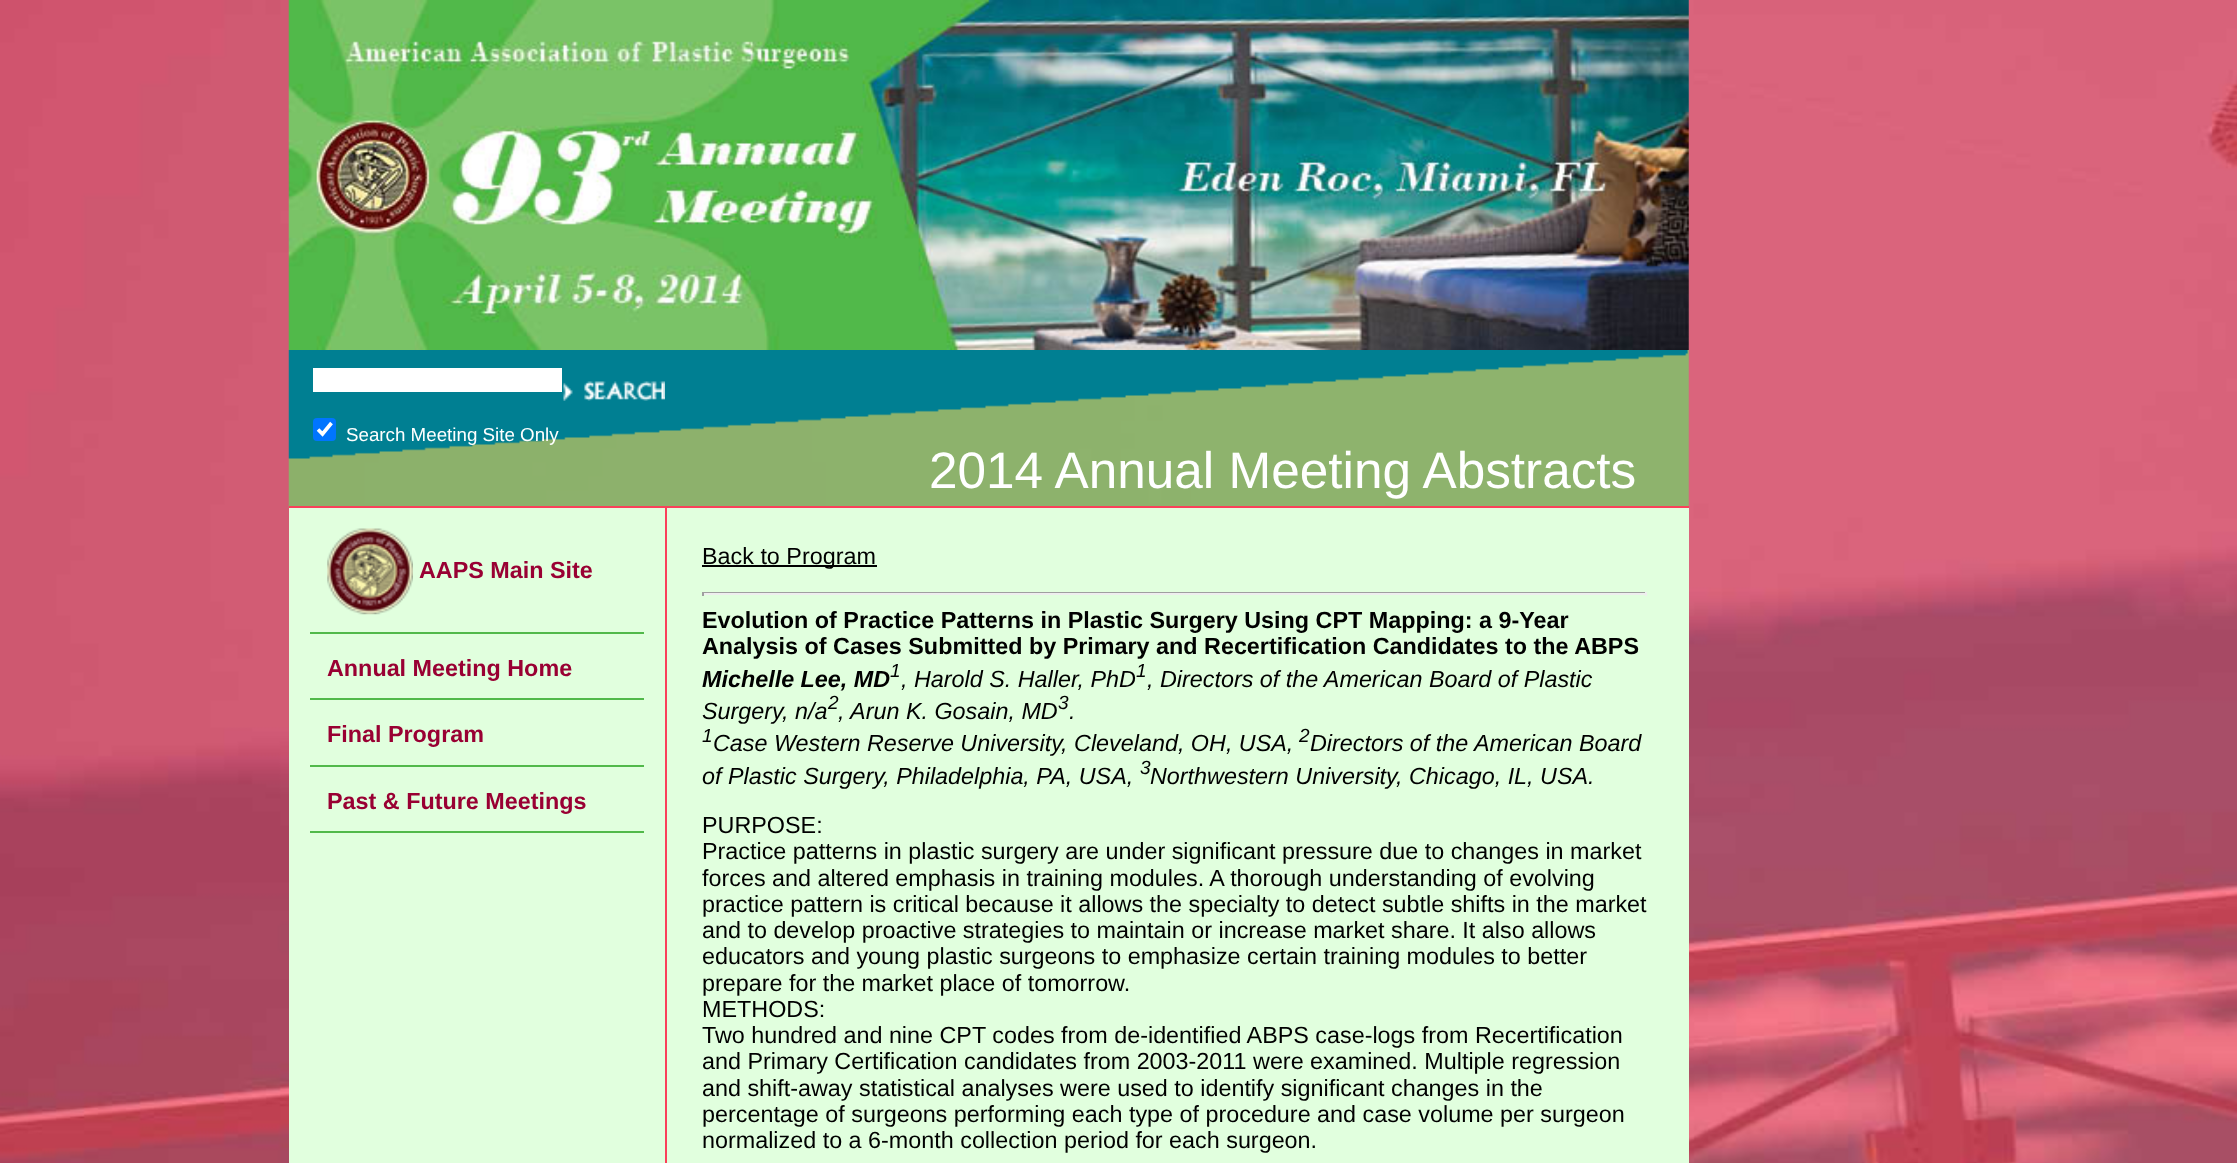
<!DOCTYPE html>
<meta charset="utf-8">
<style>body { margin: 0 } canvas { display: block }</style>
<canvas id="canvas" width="2237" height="1163"></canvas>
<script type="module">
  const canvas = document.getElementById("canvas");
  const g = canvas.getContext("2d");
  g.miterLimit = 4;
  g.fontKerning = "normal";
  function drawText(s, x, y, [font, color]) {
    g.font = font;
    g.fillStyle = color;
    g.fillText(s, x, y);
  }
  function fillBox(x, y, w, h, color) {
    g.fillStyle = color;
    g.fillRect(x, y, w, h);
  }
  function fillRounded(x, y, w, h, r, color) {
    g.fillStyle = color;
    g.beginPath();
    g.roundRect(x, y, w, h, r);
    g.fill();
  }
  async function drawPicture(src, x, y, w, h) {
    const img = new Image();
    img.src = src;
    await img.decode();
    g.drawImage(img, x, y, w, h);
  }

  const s1 = ["18.75px Liberation Sans", "#FFFFFF"];
  const s2 = ["51.3px Liberation Sans", "#FFFFFF"];
  const s3 = ["bold 23.35px Liberation Sans", "#990033"];
  const s4 = ["23.35px Liberation Sans", "#000000"];
  const s5 = ["bold 23.35px Liberation Sans", "#000000"];
  const s6 = ["italic bold 23.35px Liberation Sans", "#000000"];
  const s7 = ["italic 19px Liberation Sans", "#000000"];
  const s8 = ["italic 23.35px Liberation Sans", "#000000"];

  fillBox(0, 0, 2237, 1163, "#FFFFFF");
  await drawPicture("pic1.png", 0, 0, 2237, 1163);
  await drawPicture("pic2.png", 288, 0, 1401, 350);
  await drawPicture("pic3.png", 288, 350, 377, 158);
  fillBox(289, 506, 1400, 2, "#FA405A");
  fillBox(313, 368, 249, 24, "#FFFFFF");
  await drawPicture("pic4.png", 563, 381, 102, 20);
  fillRounded(313, 418, 23, 23, 4, "#0075FF");
  g.beginPath();
  g.moveTo(318, 429.5);
  g.lineTo(322.5, 434);
  g.lineTo(331.5, 423);
  g.strokeStyle = "#FFFFFF";
  g.lineWidth = 3.6;
  g.stroke();
  drawText("Search Meeting Site Only", 346, 441, s1);
  await drawPicture("pic5.png", 665, 350, 1024, 156);
  drawText("2014 Annual Meeting Abstracts", 929, 488, s2);
  fillBox(289, 508, 376, 655, "#E1FFDE");
  fillBox(310, 632, 334, 2, "#51B94A");
  await drawPicture("pic6.png", 327, 528, 86, 87);
  drawText("AAPS Main Site", 419, 578, s3);
  fillBox(310, 698, 334, 2, "#51B94A");
  drawText("Annual Meeting Home", 327, 676, s3);
  fillBox(310, 765, 334, 2, "#51B94A");
  drawText("Final Program", 327, 742, s3);
  fillBox(310, 831, 334, 2, "#51B94A");
  drawText("Past & Future Meetings", 327, 809, s3);
  fillBox(667, 508, 1022, 655, "#E1FFDE");
  fillBox(665, 508, 2, 655, "#FA405A");
  fillBox(702, 565, 175, 2, "#000000");
  drawText("Back to Program", 702, 564, s4);
  fillBox(702, 592, 945, 1, "#9F9F9F");
  fillBox(1645, 592, 2, 4, "#EEEEEE");
  fillBox(702, 593, 945, 2, "#EEEEEE");
  fillBox(702, 592, 2, 4, "#9F9F9F");
  drawText("Evolution of Practice Patterns in Plastic Surgery Using CPT Mapping: a 9-Year", 702, 628, s5);
  drawText("Analysis of Cases Submitted by Primary and Recertification Candidates to the ABPS", 702, 654, s5);
  drawText("Michelle Lee, MD", 702, 687, s6);
  drawText("1", 890, 677, s7);
  drawText(", Harold S. Haller, PhD", 901, 687, s8);
  drawText("1", 1136, 677, s7);
  drawText(", Directors of the American Board of Plastic", 1147, 687, s8);
  drawText("Surgery, n/a", 702, 719, s8);
  drawText("2", 828, 709, s7);
  drawText(", Arun K. Gosain, MD", 838, 719, s8);
  drawText("3", 1058, 709, s7);
  drawText(".", 1069, 719, s8);
  drawText("1", 702, 742, s7);
  drawText("Case Western Reserve University, Cleveland, OH, USA,", 713, 751, s8);
  drawText("2", 1299, 742, s7);
  drawText("Directors of the American Board", 1310, 751, s8);
  drawText("of Plastic Surgery, Philadelphia, PA, USA,", 702, 784, s8);
  drawText("3", 1140, 774, s7);
  drawText("Northwestern University, Chicago, IL, USA.", 1150, 784, s8);
  drawText("PURPOSE:", 702, 833, s4);
  drawText("Practice patterns in plastic surgery are under significant pressure due to changes in market", 702, 859, s4);
  drawText("forces and altered emphasis in training modules. A thorough understanding of evolving", 702, 886, s4);
  drawText("practice pattern is critical because it allows the specialty to detect subtle shifts in the market", 702, 912, s4);
  drawText("and to develop proactive strategies to maintain or increase market share. It also allows", 702, 938, s4);
  drawText("educators and young plastic surgeons to emphasize certain training modules to better", 702, 964, s4);
  drawText("prepare for the market place of tomorrow.", 702, 991, s4);
  drawText("METHODS:", 702, 1017, s4);
  drawText("Two hundred and nine CPT codes from de-identified ABPS case-logs from Recertification", 702, 1043, s4);
  drawText("and Primary Certification candidates from 2003-2011 were examined. Multiple regression", 702, 1069, s4);
  drawText("and shift-away statistical analyses were used to identify significant changes in the", 702, 1096, s4);
  drawText("percentage of surgeons performing each type of procedure and case volume per surgeon", 702, 1122, s4);
  drawText("normalized to a 6-month collection period for each surgeon.", 702, 1148, s4);
</script>
